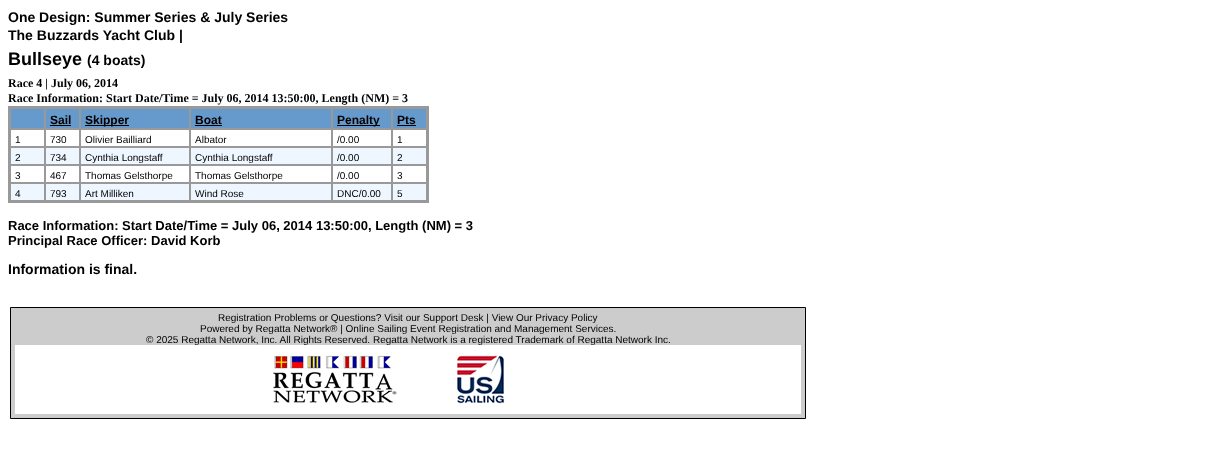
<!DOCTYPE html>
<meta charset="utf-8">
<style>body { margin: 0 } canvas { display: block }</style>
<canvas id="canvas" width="1212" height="464"></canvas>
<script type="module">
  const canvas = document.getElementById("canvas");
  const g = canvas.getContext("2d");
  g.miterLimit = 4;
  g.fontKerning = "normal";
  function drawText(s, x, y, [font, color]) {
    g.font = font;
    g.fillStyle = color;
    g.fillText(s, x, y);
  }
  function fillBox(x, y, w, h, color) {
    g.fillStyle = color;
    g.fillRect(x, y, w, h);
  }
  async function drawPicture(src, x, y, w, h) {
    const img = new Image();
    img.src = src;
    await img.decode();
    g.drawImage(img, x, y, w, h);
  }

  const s1 = ["bold 14px Liberation Sans", "#000000"];
  const s2 = ["bold 18px Liberation Sans", "#000000"];
  const s3 = ["bold 12px Liberation Serif", "#000000"];
  const s4 = ["bold 12px Liberation Sans", "#000000"];
  const s5 = ["10px Liberation Sans", "#000000"];
  const s6 = ["bold 13px Liberation Sans", "#000000"];

  fillBox(0, 0, 1212, 464, "#FFFFFF");
  drawText("One Design: Summer Series & July Series", 8, 22, s1);
  drawText("The Buzzards Yacht Club |", 8, 40, s1);
  drawText("Bullseye", 8, 65, s2);
  drawText("(4 boats)", 87, 65, s1);
  drawText("Race 4 | July 06, 2014", 8, 87, s3);
  drawText("Race Information: Start Date/Time = July 06, 2014 13:50:00, Length (NM) = 3", 8, 102, s3);
  fillBox(8, 106, 421, 97, "#999999");
  fillBox(11, 109, 33, 19, "#6699CC");
  fillBox(46, 109, 33, 19, "#6699CC");
  drawText("Sail", 50, 124, s4);
  fillBox(50, 125, 21, 1, "#000000");
  fillBox(81, 109, 108, 19, "#6699CC");
  fillBox(85, 125, 44, 1, "#000000");
  drawText("Skipper", 85, 124, s4);
  fillBox(191, 109, 140, 19, "#6699CC");
  drawText("Boat", 195, 124, s4);
  fillBox(195, 125, 27, 1, "#000000");
  fillBox(333, 109, 58, 19, "#6699CC");
  fillBox(337, 125, 43, 1, "#000000");
  drawText("Penalty", 337, 124, s4);
  fillBox(393, 109, 33, 19, "#6699CC");
  drawText("Pts", 397, 124, s4);
  fillBox(397, 125, 19, 1, "#000000");
  fillBox(11, 130, 33, 16, "#FFFFFF");
  drawText("1", 15, 143, s5);
  fillBox(46, 130, 33, 16, "#FFFFFF");
  drawText("730", 50, 143, s5);
  fillBox(81, 130, 108, 16, "#FFFFFF");
  drawText("Olivier Bailliard", 85, 143, s5);
  fillBox(191, 130, 140, 16, "#FFFFFF");
  drawText("Albator", 195, 143, s5);
  fillBox(333, 130, 58, 16, "#FFFFFF");
  drawText("/0.00", 337, 143, s5);
  fillBox(393, 130, 33, 16, "#FFFFFF");
  drawText("1", 397, 143, s5);
  fillBox(11, 148, 33, 16, "#EEF6FF");
  drawText("2", 15, 161, s5);
  fillBox(46, 148, 33, 16, "#EEF6FF");
  drawText("734", 50, 161, s5);
  fillBox(81, 148, 108, 16, "#EEF6FF");
  drawText("Cynthia Longstaff", 85, 161, s5);
  fillBox(191, 148, 140, 16, "#EEF6FF");
  drawText("Cynthia Longstaff", 195, 161, s5);
  fillBox(333, 148, 58, 16, "#EEF6FF");
  drawText("/0.00", 337, 161, s5);
  fillBox(393, 148, 33, 16, "#EEF6FF");
  drawText("2", 397, 161, s5);
  fillBox(11, 166, 33, 16, "#FFFFFF");
  drawText("3", 15, 179, s5);
  fillBox(46, 166, 33, 16, "#FFFFFF");
  drawText("467", 50, 179, s5);
  fillBox(81, 166, 108, 16, "#FFFFFF");
  drawText("Thomas Gelsthorpe", 85, 179, s5);
  fillBox(191, 166, 140, 16, "#FFFFFF");
  drawText("Thomas Gelsthorpe", 195, 179, s5);
  fillBox(333, 166, 58, 16, "#FFFFFF");
  drawText("/0.00", 337, 179, s5);
  fillBox(393, 166, 33, 16, "#FFFFFF");
  drawText("3", 397, 179, s5);
  fillBox(11, 184, 33, 16, "#EEF6FF");
  drawText("4", 15, 197, s5);
  fillBox(46, 184, 33, 16, "#EEF6FF");
  drawText("793", 50, 197, s5);
  fillBox(81, 184, 108, 16, "#EEF6FF");
  drawText("Art Milliken", 85, 197, s5);
  fillBox(191, 184, 140, 16, "#EEF6FF");
  drawText("Wind Rose", 195, 197, s5);
  fillBox(333, 184, 58, 16, "#EEF6FF");
  drawText("DNC/0.00", 337, 197, s5);
  fillBox(393, 184, 33, 16, "#EEF6FF");
  drawText("5", 397, 197, s5);
  drawText("Race Information: Start Date/Time = July 06, 2014 13:50:00, Length (NM) = 3", 8, 230, s6);
  drawText("Principal Race Officer: David Korb", 8, 245, s6);
  drawText("Information is final.", 8, 274, s1);
  g.fillStyle = "#CCCCCC";
  g.beginPath();
  g.rect(10.5, 307.5, 795, 111);
  g.fill();
  g.strokeStyle = "#000000";
  g.stroke();
  drawText("Registration Problems or Questions? Visit our Support Desk | View Our Privacy Policy", 218, 321, s5);
  drawText("Powered by Regatta Network® | Online Sailing Event Registration and Management Services.", 200, 332, s5);
  fillBox(15, 345, 786, 69, "#FFFFFF");
  drawText("© 2025 Regatta Network, Inc. All Rights Reserved. Regatta Network is a registered Trademark of Regatta Network Inc.", 146, 343, s5);
  await drawPicture("pic1.png", 273, 345, 124, 59);
  await drawPicture("pic2.png", 457, 345, 48, 59);
</script>
